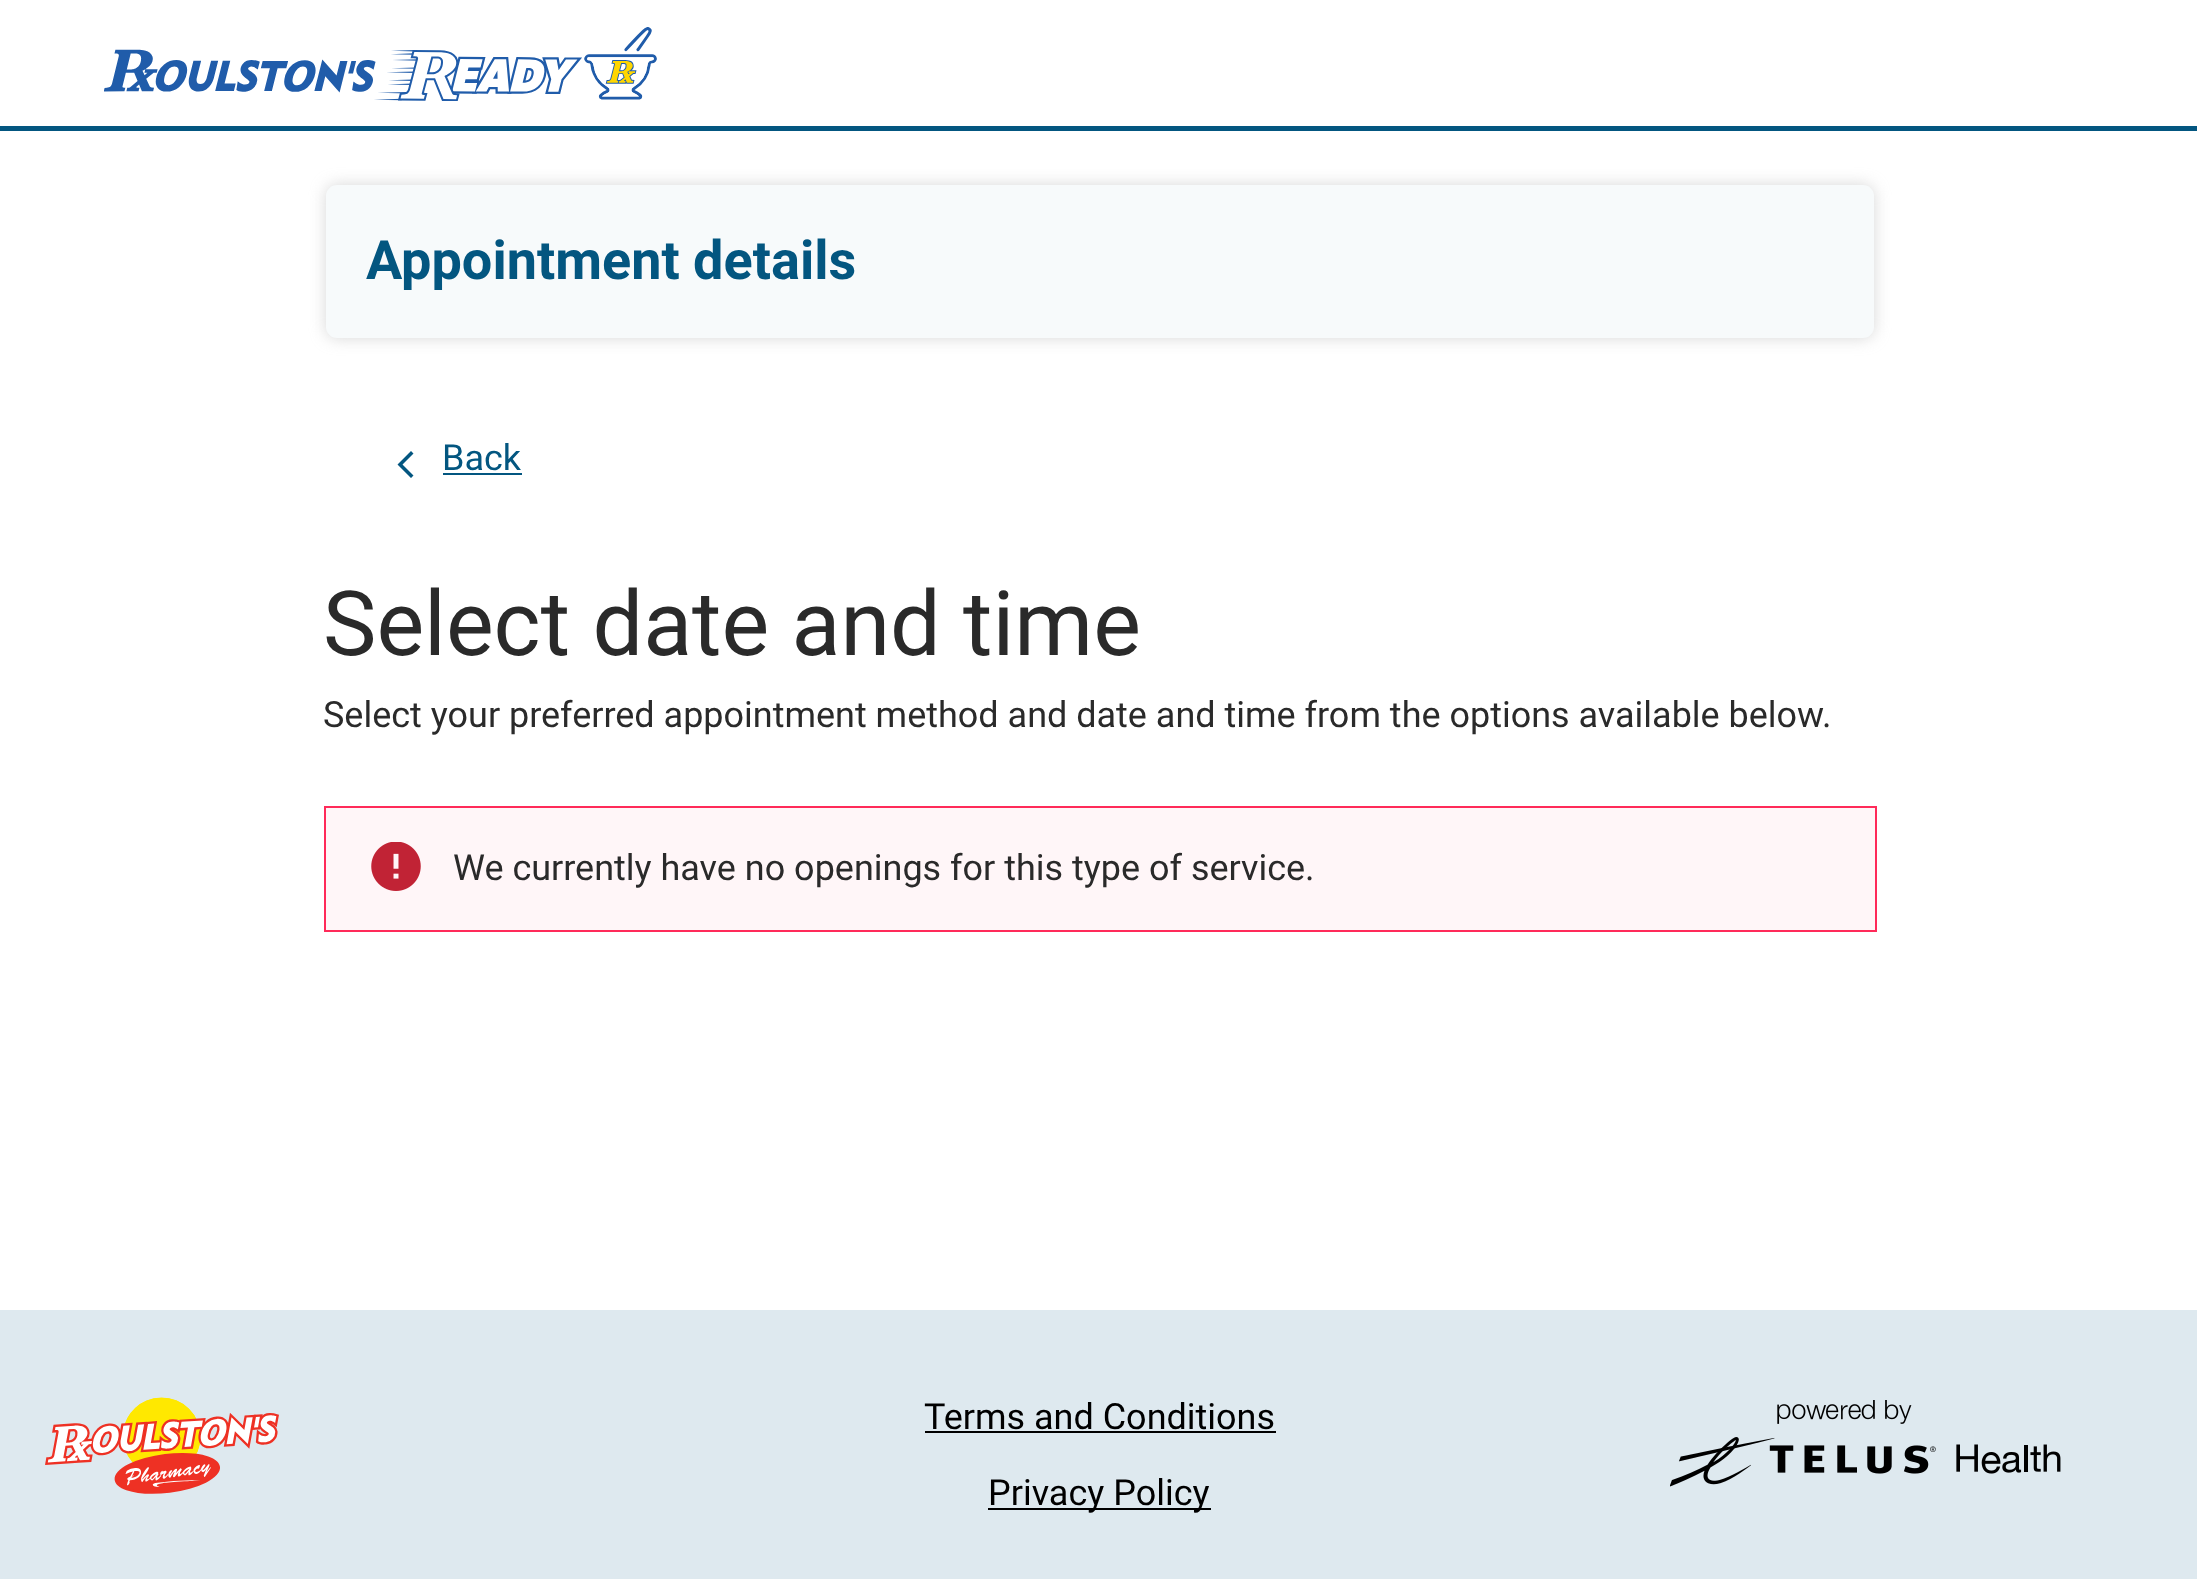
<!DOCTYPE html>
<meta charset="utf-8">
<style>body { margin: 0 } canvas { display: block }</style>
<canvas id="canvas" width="2197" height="1579"></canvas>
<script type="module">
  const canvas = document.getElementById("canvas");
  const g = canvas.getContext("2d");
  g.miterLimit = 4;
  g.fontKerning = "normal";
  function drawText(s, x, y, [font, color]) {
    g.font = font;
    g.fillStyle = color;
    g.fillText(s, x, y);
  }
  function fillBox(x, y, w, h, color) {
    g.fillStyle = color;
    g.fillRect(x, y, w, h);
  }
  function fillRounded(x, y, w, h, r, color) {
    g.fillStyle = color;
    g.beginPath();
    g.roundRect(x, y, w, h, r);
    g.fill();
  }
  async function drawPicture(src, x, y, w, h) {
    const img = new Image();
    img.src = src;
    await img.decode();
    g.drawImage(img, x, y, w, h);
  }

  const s1 = ["bold 54px Roboto", "#035680"];
  const s2 = ["36px Roboto", "#035680"];
  const s3 = ["90px Roboto", "#2A2A2A"];
  const s4 = ["36px Roboto", "#2A2A2A"];
  const s5 = ["36px Roboto", "#000000"];

  fillBox(0, 0, 2197, 1579, "#FFFFFF");
  fillBox(0, 126, 2197, 5, "#035680");
  await drawPicture("pic1.png", 104, 27, 553, 74);
  g.fillStyle = "rgba(176, 176, 176, 0.5)";
  g.filter = "blur(8px)";
  g.beginPath();
  g.roundRect(326, 185, 1548, 153, 11);
  g.fill();
  g.filter = "none";
  fillRounded(326, 185, 1548, 153, 11, "#F7FAFB");
  drawText("Appointment details", 366, 279, s1);
  g.beginPath();
  g.moveTo(411, 478);
  g.lineTo(397.5, 464.5);
  g.lineTo(411, 451);
  g.lineTo(413.5, 453.5);
  g.lineTo(402.5, 464.5);
  g.lineTo(413.5, 475.5);
  g.closePath();
  g.fill("evenodd");
  drawText("Back", 442, 470, s2);
  fillBox(443, 473, 79, 2, "#035680");
  drawText("Select date and time", 323, 655, s3);
  drawText("Select your preferred appointment method and date and time from the options available below.", 323, 727, s4);
  g.fillStyle = "#FFF6F8";
  g.beginPath();
  g.rect(325, 807, 1551, 124);
  g.fill();
  g.strokeStyle = "#FF2A59";
  g.lineWidth = 2;
  g.stroke();
  await drawPicture("pic2.png", 371, 842, 50, 49);
  drawText("We currently have no openings for this type of service.", 453, 880, s4);
  fillBox(0, 1310, 2197, 269, "#DEE9EF");
  await drawPicture("pic3.png", 45, 1397, 234, 97);
  drawText("Terms and Conditions", 924, 1429, s5);
  fillBox(925, 1431, 351, 2, "#000000");
  fillBox(988, 1508, 223, 2, "#000000");
  drawText("Privacy Policy", 988, 1505, s5);
  await drawPicture("pic4.png", 1670, 1400, 391, 87);
</script>
